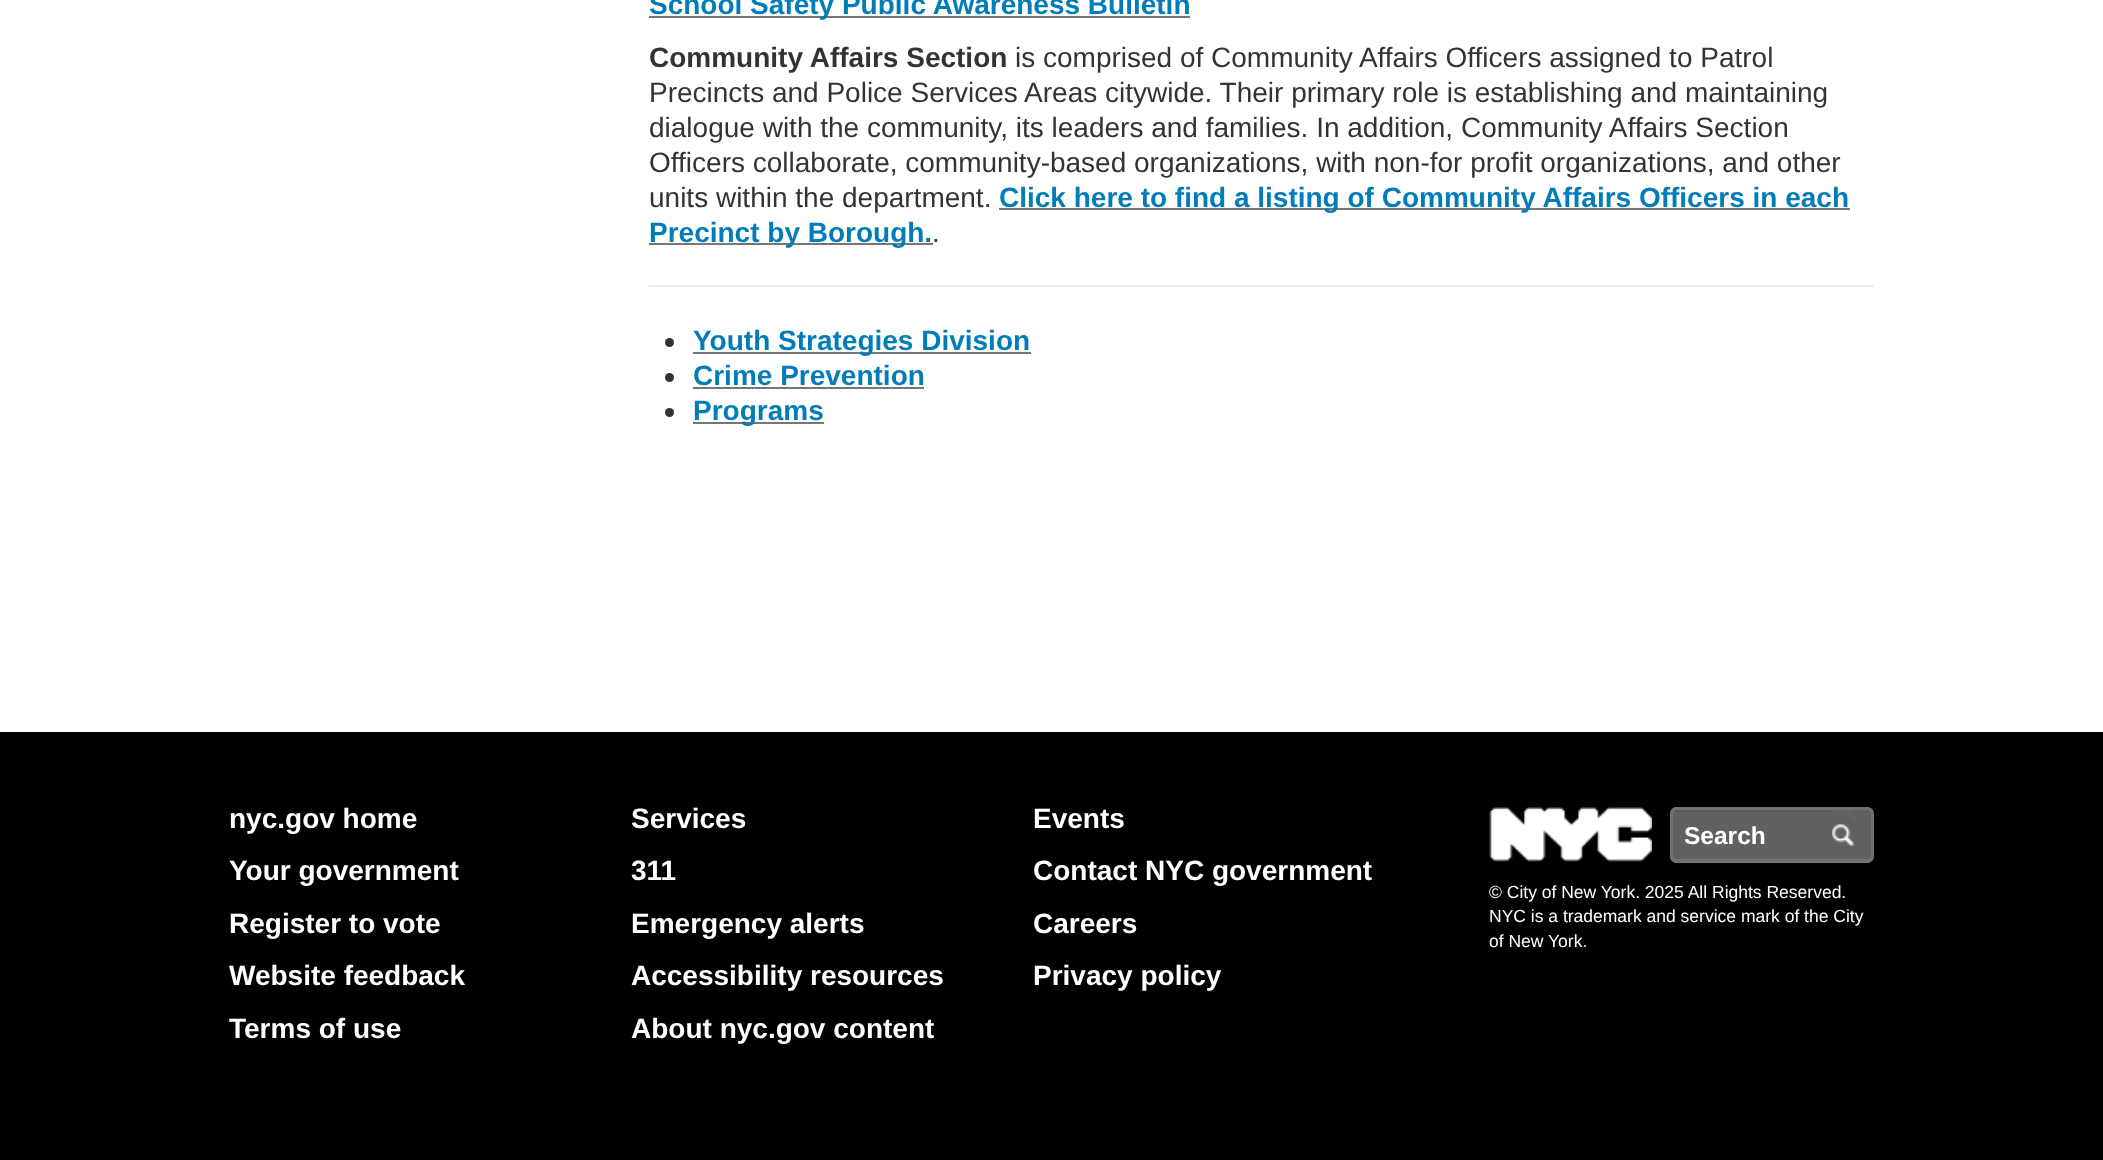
<!DOCTYPE html>
<meta charset="utf-8">
<style>body { margin: 0 } canvas { display: block }</style>
<canvas id="canvas" width="2103" height="1160"></canvas>
<script type="module">
  const canvas = document.getElementById("canvas");
  const g = canvas.getContext("2d");
  g.miterLimit = 4;
  g.fontKerning = "normal";
  function drawText(s, x, y, [font, color]) {
    g.font = font;
    g.fillStyle = color;
    g.fillText(s, x, y);
  }
  function fillBox(x, y, w, h, color) {
    g.fillStyle = color;
    g.fillRect(x, y, w, h);
  }
  async function drawPicture(src, x, y, w, h) {
    const img = new Image();
    img.src = src;
    await img.decode();
    g.drawImage(img, x, y, w, h);
  }

  const s1 = ["bold 28px Liberation Sans", "#007DB8"];
  const s2 = ["bold 28px Liberation Sans", "#333333"];
  const s3 = ["28px Liberation Sans", "#333333"];
  const s4 = ["bold 28px Liberation Sans", "#FFFFFF"];
  const s5 = ["bold 24.5px Liberation Sans", "#FFFFFF"];
  const s6 = ["17.5px Liberation Sans", "#FFFFFF"];

  fillBox(0, 0, 2103, 1160, "#FFFFFF");
  fillBox(649, 16, 541, 2, "#777677");
  drawText("School Safety Public Awareness Bulletin", 649, 14, s1);
  drawText("Community Affairs Section", 649, 67, s2);
  drawText("is comprised of Community Affairs Officers assigned to Patrol", 1015, 67, s3);
  drawText("Precincts and Police Services Areas citywide. Their primary role is establishing and maintaining", 649, 102, s3);
  drawText("dialogue with the community, its leaders and families. In addition, Community Affairs Section", 649, 137, s3);
  drawText("Officers collaborate, community-based organizations, with non-for profit organizations, and other", 649, 172, s3);
  drawText("units within the department.", 649, 207, s3);
  fillBox(999, 208, 851, 2, "#777677");
  drawText("Click here to find a listing of Community Affairs Officers in each", 999, 207, s1);
  fillBox(649, 243, 284, 2, "#777677");
  drawText("Precinct by Borough.", 649, 242, s1);
  drawText(".", 932, 242, s3);
  fillBox(649, 285, 1225, 2, "#EEEEEE");
  g.fillStyle = "#333333";
  g.beginPath();
  g.arc(669.5, 342.5, 4.5, 0, Math.PI * 2);
  g.fill();
  fillBox(693, 352, 338, 2, "#777677");
  drawText("Youth Strategies Division", 693, 350, s1);
  g.fillStyle = "#333333";
  g.beginPath();
  g.arc(669.5, 377.5, 4.5, 0, Math.PI * 2);
  g.fill();
  drawText("Crime Prevention", 693, 385, s1);
  fillBox(693, 387, 231, 2, "#777677");
  g.fillStyle = "#333333";
  g.beginPath();
  g.arc(669.5, 412.5, 4.5, 0, Math.PI * 2);
  g.fill();
  fillBox(693, 422, 131, 2, "#777677");
  drawText("Programs", 693, 420, s1);
  fillBox(0, 732, 2103, 428, "#000000");
  drawText("nyc.gov home", 229, 828, s4);
  drawText("Services", 631, 828, s4);
  drawText("Events", 1033, 828, s4);
  drawText("Your government", 229, 880, s4);
  drawText("311", 631, 880, s4);
  drawText("Contact NYC government", 1033, 880, s4);
  drawText("Register to vote", 229, 933, s4);
  drawText("Emergency alerts", 631, 933, s4);
  drawText("Careers", 1033, 933, s4);
  drawText("Website feedback", 229, 985, s4);
  drawText("Accessibility resources", 631, 985, s4);
  drawText("Privacy policy", 1033, 985, s4);
  drawText("Terms of use", 229, 1038, s4);
  drawText("About nyc.gov content", 631, 1038, s4);
  await drawPicture("pic1.png", 1489, 807, 163, 55);
  g.fillStyle = "#616161";
  g.beginPath();
  g.roundRect(1670, 807, 162, 56, [7, 0, 0, 7]);
  g.fill();
  g.fillStyle = "#5A5A5A";
  g.beginPath();
  g.moveTo(1676, 812);
  g.lineTo(1832, 812);
  g.lineTo(1832, 810);
  g.lineTo(1677, 810);
  g.bezierCurveTo(1675, 810, 1673, 812, 1673, 814);
  g.lineTo(1673, 816);
  g.bezierCurveTo(1673, 814, 1675, 812, 1676, 812);
  g.closePath();
  g.fill();
  g.fillStyle = "#727272";
  g.beginPath();
  g.moveTo(1676, 807);
  g.lineTo(1832, 807);
  g.lineTo(1832, 863);
  g.lineTo(1676, 863);
  g.bezierCurveTo(1673, 863, 1670, 860, 1670, 856);
  g.lineTo(1670, 814);
  g.bezierCurveTo(1670, 810, 1673, 807, 1676, 807);
  g.closePath();
  g.moveTo(1676, 810);
  g.lineTo(1832, 810);
  g.lineTo(1832, 859);
  g.lineTo(1676, 859);
  g.bezierCurveTo(1675, 859, 1673, 858, 1673, 856);
  g.lineTo(1673, 814);
  g.bezierCurveTo(1673, 812, 1675, 810, 1676, 810);
  g.closePath();
  g.fill("evenodd");
  drawText("Search", 1684, 844, s5);
  g.fillStyle = "#616161";
  g.beginPath();
  g.roundRect(1832, 807, 42, 56, [0, 7, 7, 0]);
  g.fill();
  await drawPicture("pic2.png", 1832, 810, 24, 36);
  g.fillStyle = "#727272";
  g.beginPath();
  g.moveTo(1832, 807);
  g.lineTo(1867, 807);
  g.bezierCurveTo(1871, 807, 1874, 810, 1874, 814);
  g.lineTo(1874, 856);
  g.bezierCurveTo(1874, 860, 1871, 863, 1867, 863);
  g.lineTo(1832, 863);
  g.closePath();
  g.moveTo(1832, 810);
  g.lineTo(1867, 810);
  g.bezierCurveTo(1869, 810, 1871, 812, 1871, 814);
  g.lineTo(1871, 856);
  g.bezierCurveTo(1871, 858, 1869, 859, 1867, 859);
  g.lineTo(1832, 859);
  g.closePath();
  g.fill("evenodd");
  drawText("© City of New York. 2025 All Rights Reserved.", 1489, 898, s6);
  drawText("NYC is a trademark and service mark of the City", 1489, 922, s6);
  drawText("of New York.", 1489, 947, s6);
</script>
